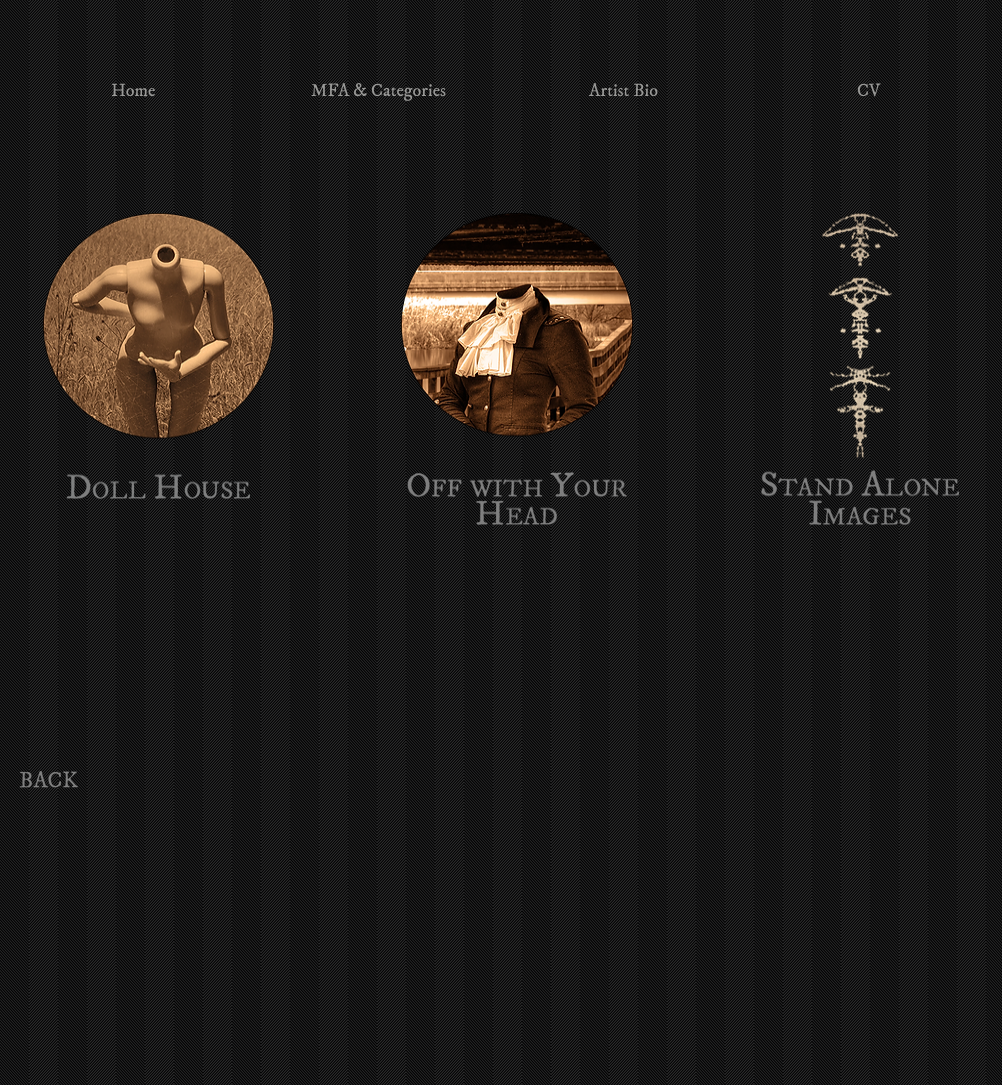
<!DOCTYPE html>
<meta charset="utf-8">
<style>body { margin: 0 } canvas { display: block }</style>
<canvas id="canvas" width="1002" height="1085"></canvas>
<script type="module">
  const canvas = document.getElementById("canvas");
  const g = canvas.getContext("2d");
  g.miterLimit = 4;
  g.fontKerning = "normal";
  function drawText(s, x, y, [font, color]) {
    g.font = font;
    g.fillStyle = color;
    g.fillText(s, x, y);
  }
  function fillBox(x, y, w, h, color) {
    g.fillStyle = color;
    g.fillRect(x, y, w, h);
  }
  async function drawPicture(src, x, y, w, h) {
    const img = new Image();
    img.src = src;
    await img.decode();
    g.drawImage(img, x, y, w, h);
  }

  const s1 = ["18px IM FELL DW Pica", "#999997"];

  fillBox(0, 0, 1002, 1085, "#000000");
  await drawPicture("pic1.png", 0, 0, 1002, 1085);
  drawText("Home", 111, 96, s1);
  drawText("MFA & Categories", 311, 96, s1);
  drawText("Artist Bio", 589, 96, s1);
  drawText("CV", 857, 96, s1);
  await drawPicture("pic2.png", 43, 213, 231, 286);
  await drawPicture("pic3.png", 401, 213, 232, 312);
  await drawPicture("pic4.png", 761, 213, 198, 312);
  await drawPicture("pic5.png", 19, 771, 59, 17);
</script>
